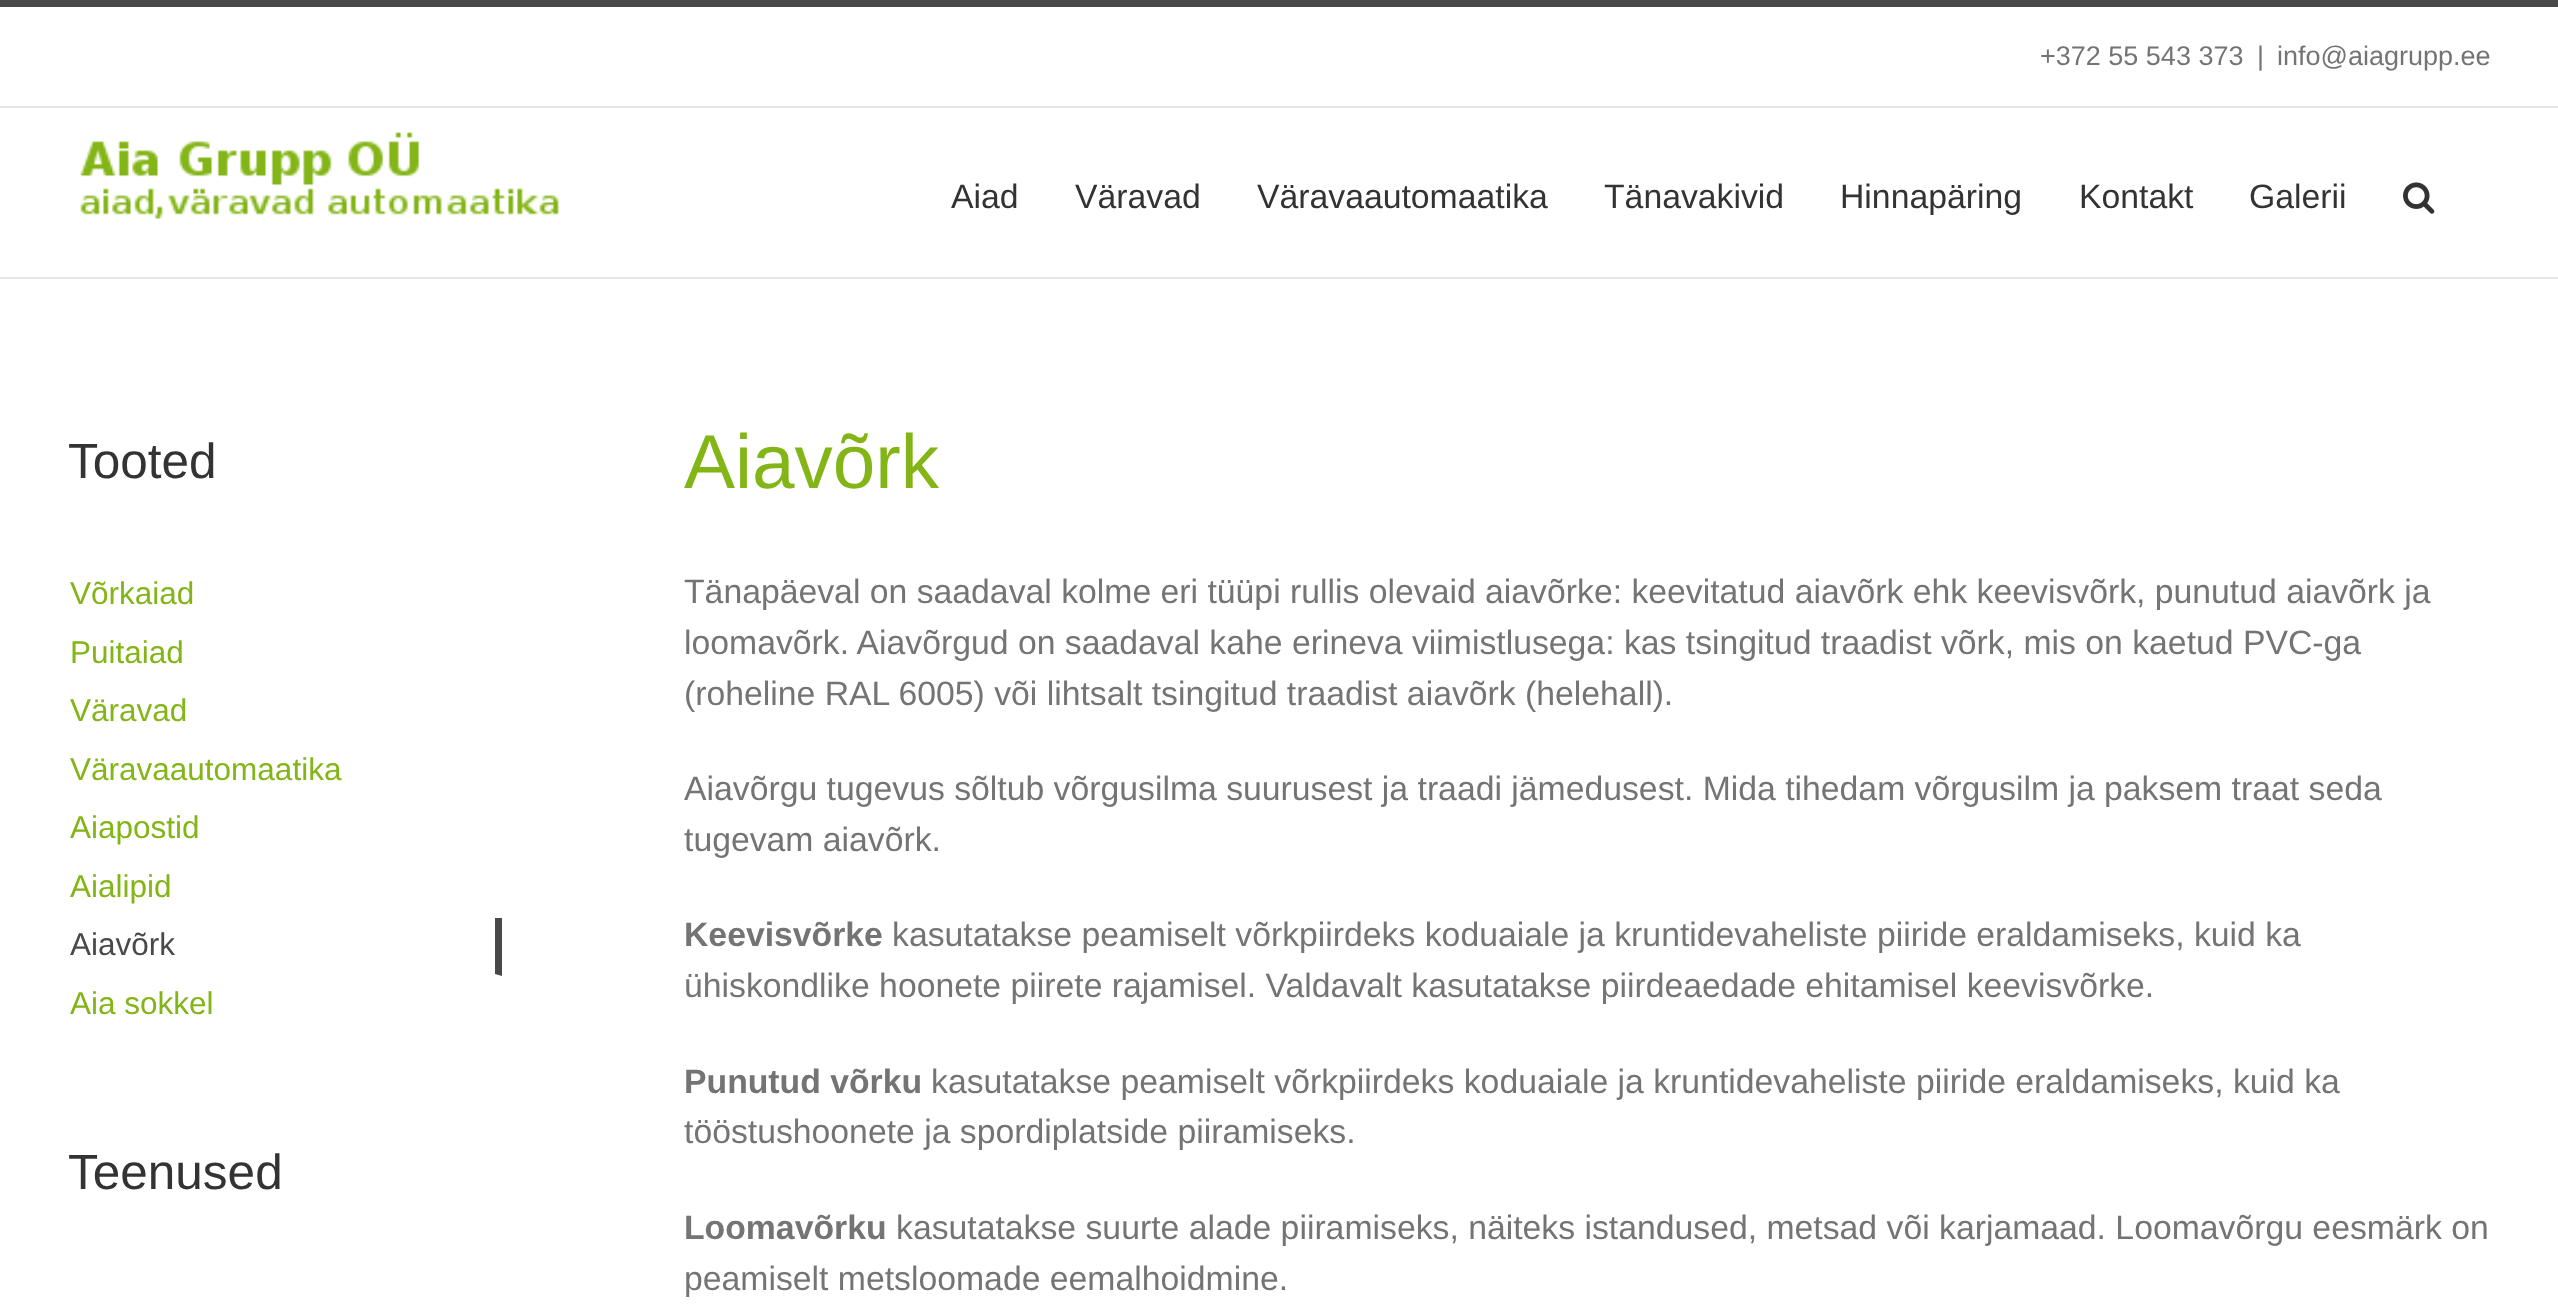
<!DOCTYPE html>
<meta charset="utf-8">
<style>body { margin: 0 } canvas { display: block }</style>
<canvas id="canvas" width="2558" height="1304"></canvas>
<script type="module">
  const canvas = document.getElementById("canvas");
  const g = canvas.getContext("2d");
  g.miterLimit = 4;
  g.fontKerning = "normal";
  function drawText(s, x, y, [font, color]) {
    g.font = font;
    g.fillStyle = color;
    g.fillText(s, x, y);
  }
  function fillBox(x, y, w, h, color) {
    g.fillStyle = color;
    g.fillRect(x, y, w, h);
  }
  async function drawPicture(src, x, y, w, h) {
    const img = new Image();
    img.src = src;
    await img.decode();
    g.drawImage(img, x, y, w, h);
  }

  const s1 = ["27px Liberation Sans", "#747474"];
  const s2 = ["33.75px Liberation Sans", "#333333"];
  const s3 = ["49.5px Liberation Sans", "#333333"];
  const s4 = ["31.5px Liberation Sans", "#83B517"];
  const s5 = ["31.5px Liberation Sans", "#494949"];
  const s6 = ["76.5px Liberation Sans", "#83B517"];
  const s7 = ["33.75px Liberation Sans", "#747474"];
  const s8 = ["bold 33.75px Liberation Sans", "#747474"];

  fillBox(0, 0, 2558, 1304, "#FFFFFF");
  fillBox(0, 0, 2558, 7, "#494949");
  fillBox(0, 106, 2558, 2, "#E5E5E5");
  drawText("+372 55 543 373", 2040, 65, s1);
  drawText("|", 2257, 65, s1);
  drawText("info@aiagrupp.ee", 2277, 65, s1);
  fillBox(0, 277, 2558, 2, "#E5E5E5");
  await drawPicture("pic1.png", 80, 132, 479, 87);
  drawText("Aiad", 951, 208, s2);
  drawText("Väravad", 1075, 208, s2);
  drawText("Väravaautomaatika", 1257, 208, s2);
  drawText("Tänavakivid", 1604, 208, s2);
  drawText("Hinnapäring", 1840, 208, s2);
  drawText("Kontakt", 2079, 208, s2);
  drawText("Galerii", 2249, 208, s2);
  await drawPicture("pic2.png", 2403, 182, 32, 32);
  drawText("Tooted", 68, 478, s3);
  drawText("Võrkaiad", 70, 604, s4);
  drawText("Puitaiad", 70, 663, s4);
  drawText("Väravad", 70, 721, s4);
  drawText("Väravaautomaatika", 70, 780, s4);
  drawText("Aiapostid", 70, 838, s4);
  drawText("Aialipid", 70, 897, s4);
  g.fillStyle = "#494949";
  g.beginPath();
  g.moveTo(502, 918);
  g.lineTo(502, 976);
  g.lineTo(495, 974);
  g.lineTo(495, 918);
  g.closePath();
  g.fill();
  drawText("Aiavõrk", 70, 955, s5);
  drawText("Aia sokkel", 70, 1014, s4);
  drawText("Teenused", 68, 1189, s3);
  drawText("Aiavõrk", 684, 488, s6);
  drawText("Tänapäeval on saadaval kolme eri tüüpi rullis olevaid aiavõrke: keevitatud aiavõrk ehk keevisvõrk, punutud aiavõrk ja", 684, 603, s7);
  drawText("loomavõrk. Aiavõrgud on saadaval kahe erineva viimistlusega: kas tsingitud traadist võrk, mis on kaetud PVC-ga", 684, 654, s7);
  drawText("(roheline RAL 6005) või lihtsalt tsingitud traadist aiavõrk (helehall).", 684, 705, s7);
  drawText("Aiavõrgu tugevus sõltub võrgusilma suurusest ja traadi jämedusest. Mida tihedam võrgusilm ja paksem traat seda", 684, 800, s7);
  drawText("tugevam aiavõrk.", 684, 851, s7);
  drawText("Keevisvõrke", 684, 946, s8);
  drawText("kasutatakse peamiselt võrkpiirdeks koduaiale ja kruntidevaheliste piiride eraldamiseks, kuid ka", 892, 946, s7);
  drawText("ühiskondlike hoonete piirete rajamisel. Valdavalt kasutatakse piirdeaedade ehitamisel keevisvõrke.", 684, 997, s7);
  drawText("Punutud võrku", 684, 1093, s8);
  drawText("kasutatakse peamiselt võrkpiirdeks koduaiale ja kruntidevaheliste piiride eraldamiseks, kuid ka", 931, 1093, s7);
  drawText("tööstushoonete ja spordiplatside piiramiseks.", 684, 1143, s7);
  drawText("Loomavõrku", 684, 1239, s8);
  drawText("kasutatakse suurte alade piiramiseks, näiteks istandused, metsad või karjamaad. Loomavõrgu eesmärk on", 896, 1239, s7);
  drawText("peamiselt metsloomade eemalhoidmine.", 684, 1290, s7);
</script>
